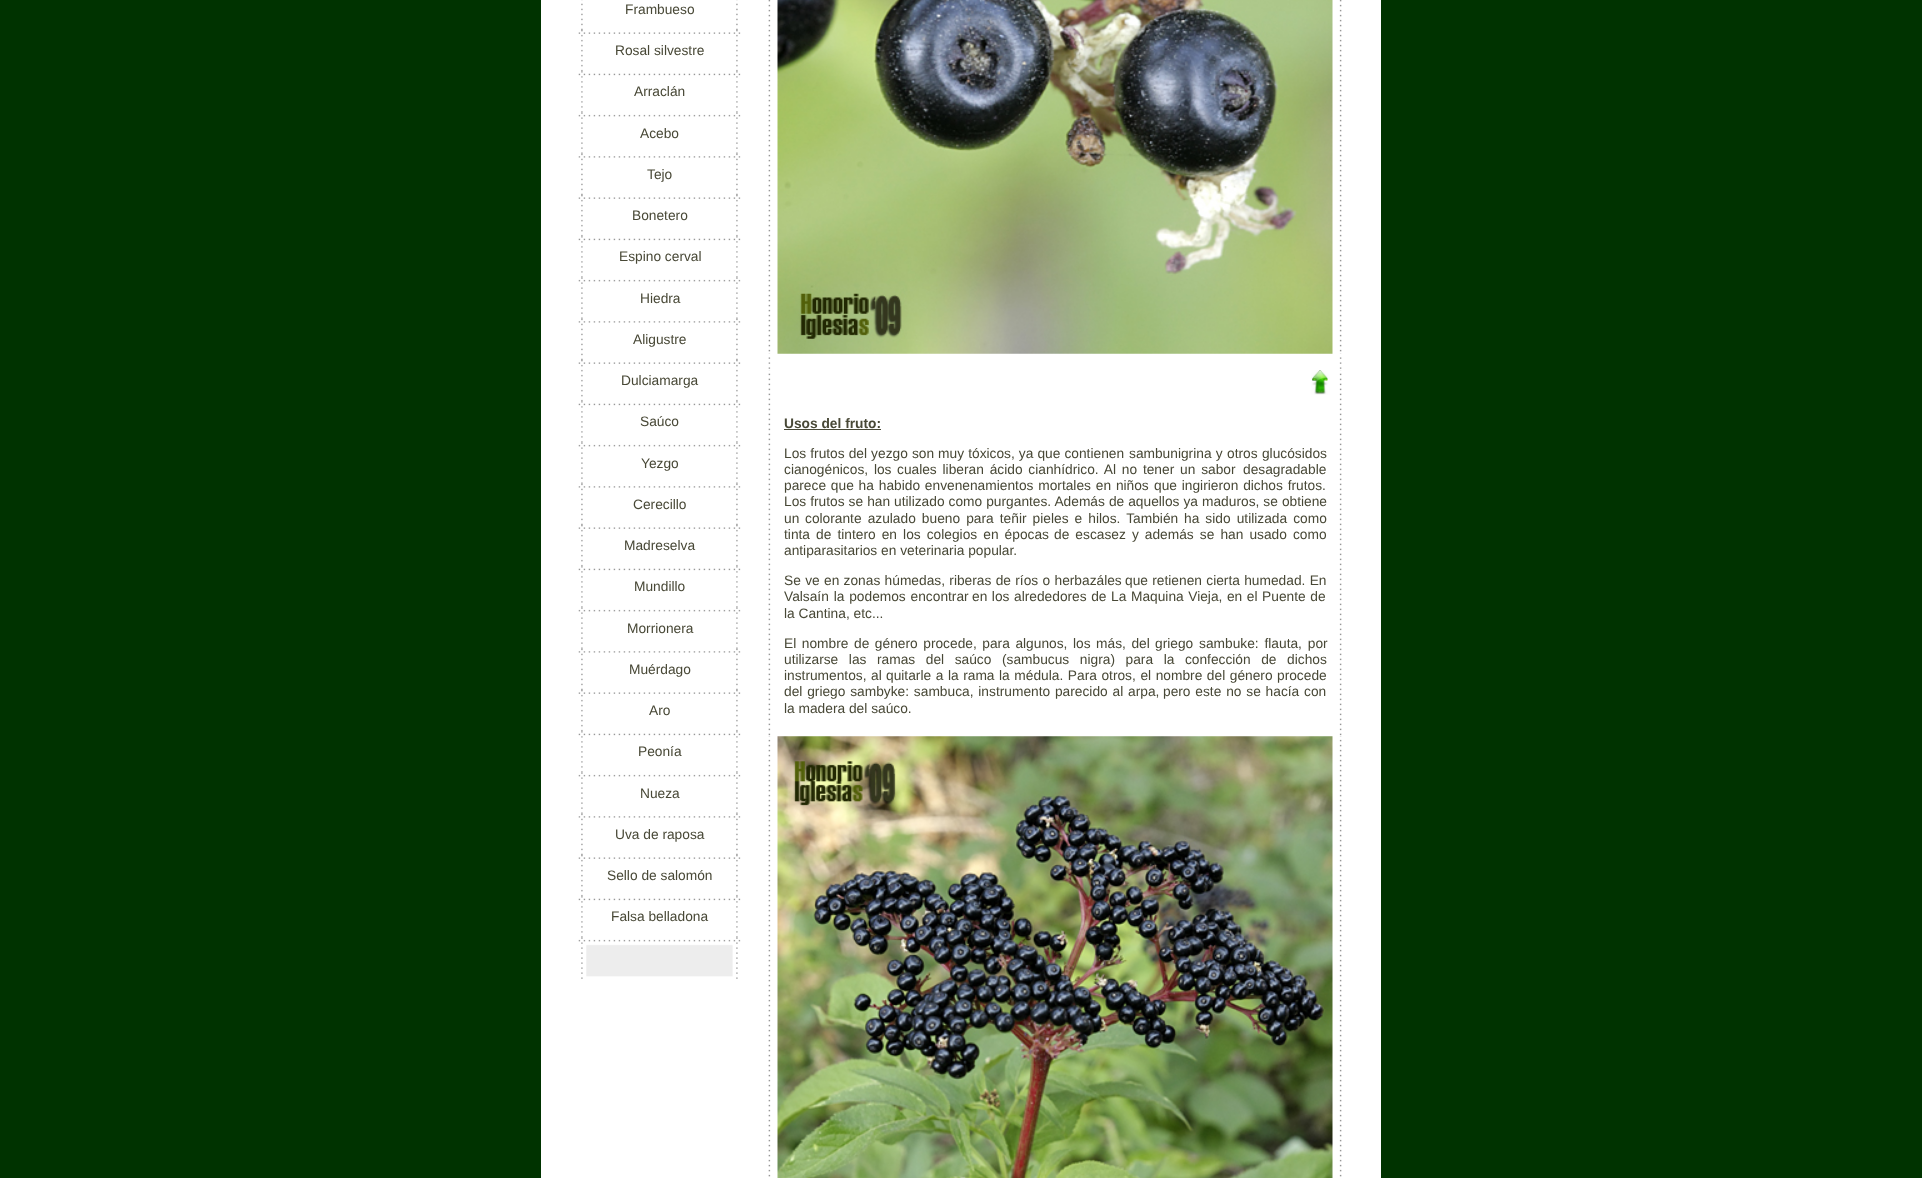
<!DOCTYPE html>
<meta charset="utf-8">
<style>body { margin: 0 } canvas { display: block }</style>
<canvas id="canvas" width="1922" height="1178"></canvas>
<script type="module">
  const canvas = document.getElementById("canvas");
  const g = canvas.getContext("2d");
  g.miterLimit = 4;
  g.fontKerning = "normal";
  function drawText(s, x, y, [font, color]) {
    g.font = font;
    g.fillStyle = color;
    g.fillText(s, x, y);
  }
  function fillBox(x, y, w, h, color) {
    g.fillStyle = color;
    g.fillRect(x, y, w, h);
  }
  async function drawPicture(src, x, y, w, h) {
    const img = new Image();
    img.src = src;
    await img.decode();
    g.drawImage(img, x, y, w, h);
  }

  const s1 = ["13.75px Liberation Sans", "#484836"];
  const s2 = ["bold 13.75px Liberation Sans", "#484836"];

  fillBox(0, 0, 1922, 1178, "#003300");
  fillBox(541, 0, 840, 1178, "#FFFFFF");
  await drawPicture("pic1.png", 581, 0, 157, 30);
  drawText("Frambueso", 625, 14, s1);
  await drawPicture("pic2.png", 578, 30, 163, 42);
  drawText("Rosal silvestre", 615, 55, s1);
  await drawPicture("pic3.png", 578, 71, 163, 42);
  drawText("Arraclán", 634, 96, s1);
  await drawPicture("pic4.png", 578, 112, 163, 42);
  drawText("Acebo", 640, 138, s1);
  await drawPicture("pic5.png", 578, 153, 163, 42);
  drawText("Tejo", 647, 179, s1);
  await drawPicture("pic2.png", 578, 195, 163, 42);
  drawText("Bonetero", 632, 220, s1);
  await drawPicture("pic3.png", 578, 236, 163, 42);
  drawText("Espino cerval", 619, 261, s1);
  await drawPicture("pic4.png", 578, 277, 163, 42);
  drawText("Hiedra", 640, 303, s1);
  await drawPicture("pic5.png", 578, 318, 163, 42);
  drawText("Aligustre", 633, 344, s1);
  await drawPicture("pic2.png", 578, 360, 163, 42);
  drawText("Dulciamarga", 621, 385, s1);
  await drawPicture("pic3.png", 578, 401, 163, 42);
  drawText("Saúco", 640, 426, s1);
  await drawPicture("pic4.png", 578, 442, 163, 42);
  drawText("Yezgo", 641, 468, s1);
  await drawPicture("pic5.png", 578, 483, 163, 42);
  drawText("Cerecillo", 633, 509, s1);
  await drawPicture("pic2.png", 578, 525, 163, 42);
  drawText("Madreselva", 624, 550, s1);
  await drawPicture("pic3.png", 578, 566, 163, 42);
  drawText("Mundillo", 634, 591, s1);
  await drawPicture("pic4.png", 578, 607, 163, 42);
  drawText("Morrionera", 627, 633, s1);
  await drawPicture("pic5.png", 578, 648, 163, 42);
  drawText("Muérdago", 629, 674, s1);
  await drawPicture("pic2.png", 578, 690, 163, 42);
  drawText("Aro", 649, 715, s1);
  await drawPicture("pic3.png", 578, 731, 163, 42);
  drawText("Peonía", 638, 756, s1);
  await drawPicture("pic4.png", 578, 772, 163, 42);
  drawText("Nueza", 640, 798, s1);
  await drawPicture("pic5.png", 578, 813, 163, 42);
  drawText("Uva de raposa", 615, 839, s1);
  await drawPicture("pic2.png", 578, 855, 163, 42);
  drawText("Sello de salomón", 607, 880, s1);
  await drawPicture("pic3.png", 578, 896, 163, 42);
  drawText("Falsa belladona", 611, 921, s1);
  await drawPicture("pic6.png", 578, 937, 163, 42);
  await drawPicture("pic7.png", 768, 0, 3, 352);
  await drawPicture("pic8.png", 777, 0, 556, 354);
  await drawPicture("pic9.png", 1339, 0, 3, 352);
  await drawPicture("pic10.png", 768, 353, 3, 16);
  await drawPicture("pic11.png", 1339, 353, 3, 16);
  await drawPicture("pic12.png", 768, 370, 3, 25);
  await drawPicture("pic13.png", 1311, 370, 19, 25);
  await drawPicture("pic14.png", 1339, 370, 3, 25);
  await drawPicture("pic15.png", 768, 395, 3, 341);
  drawText("Usos del fruto:", 784, 428, s2);
  fillBox(784, 429, 97, 1, "#484836");
  g.wordSpacing = "0.25px";
  drawText("Los frutos del yezgo son muy tóxicos, ya que contienen", 784, 458, s1);
  g.wordSpacing = "0.5px";
  drawText("sambunigrina y otros glucósidos", 1129, 458, s1);
  g.wordSpacing = "2px";
  drawText("cianogénicos, los", 784, 474, s1);
  drawText("cuales liberan ácido cianhídrico. Al no tener un sabor", 897, 474, s1);
  g.wordSpacing = "0px";
  drawText("desagradable", 1243, 474, s1);
  g.wordSpacing = "1px";
  drawText("parece que ha habido envenenamientos mortales en niños", 784, 490, s1);
  drawText("que ingirieron dichos frutos.", 1154, 490, s1);
  g.wordSpacing = "0.2px";
  drawText("Los frutos se han utilizado como purgantes. Además de aquellos ya maduros, se obtiene", 784, 506, s1);
  g.wordSpacing = "0px";
  drawText("un", 784, 523, s1);
  g.wordSpacing = "2.25px";
  drawText("colorante azulado bueno para teñir pieles e hilos. También", 805, 523, s1);
  drawText("ha sido utilizada como", 1184, 523, s1);
  drawText("tinta de tintero en los colegios en épocas", 784, 539, s1);
  drawText("de escasez y además se han usado como", 1054, 539, s1);
  g.wordSpacing = "0px";
  drawText("antiparasitarios en veterinaria popular.", 784, 555, s1);
  g.wordSpacing = "0.5px";
  drawText("Se ve en zonas húmedas, riberas de ríos o herbazáles", 784, 585, s1);
  drawText("que retienen cierta humedad. En", 1125, 585, s1);
  g.wordSpacing = "1px";
  drawText("Valsaín la podemos encontrar", 784, 601, s1);
  g.wordSpacing = "0.75px";
  drawText("en los alrededores de La Maquina Vieja, en el Puente de", 972, 601, s1);
  g.wordSpacing = "0px";
  drawText("la Cantina, etc...", 784, 618, s1);
  g.wordSpacing = "1.75px";
  drawText("El nombre de género procede, para algunos, los más, del", 784, 648, s1);
  g.wordSpacing = "2px";
  drawText("griego sambuke: flauta, por", 1155, 648, s1);
  g.wordSpacing = "6.75px";
  drawText("utilizarse las ramas del saúco", 784, 664, s1);
  drawText("(sambucus nigra) para la confección de dichos", 1002, 664, s1);
  g.wordSpacing = "0.75px";
  drawText("instrumentos, al", 784, 680, s1);
  drawText("quitarle a la rama la médula. Para otros, el nombre del género", 886, 680, s1);
  g.wordSpacing = "0px";
  drawText("procede", 1277, 680, s1);
  g.wordSpacing = "1px";
  drawText("del griego sambyke: sambuca, instrumento parecido al arpa,", 784, 696, s1);
  drawText("pero este no se hacía con", 1163, 696, s1);
  g.wordSpacing = "0px";
  drawText("la madera del saúco.", 784, 713, s1);
  await drawPicture("pic16.png", 1339, 395, 3, 341);
  await drawPicture("pic17.png", 768, 736, 3, 441);
  await drawPicture("pic18.png", 777, 736, 556, 442);
  await drawPicture("pic19.png", 1339, 736, 3, 441);
</script>
